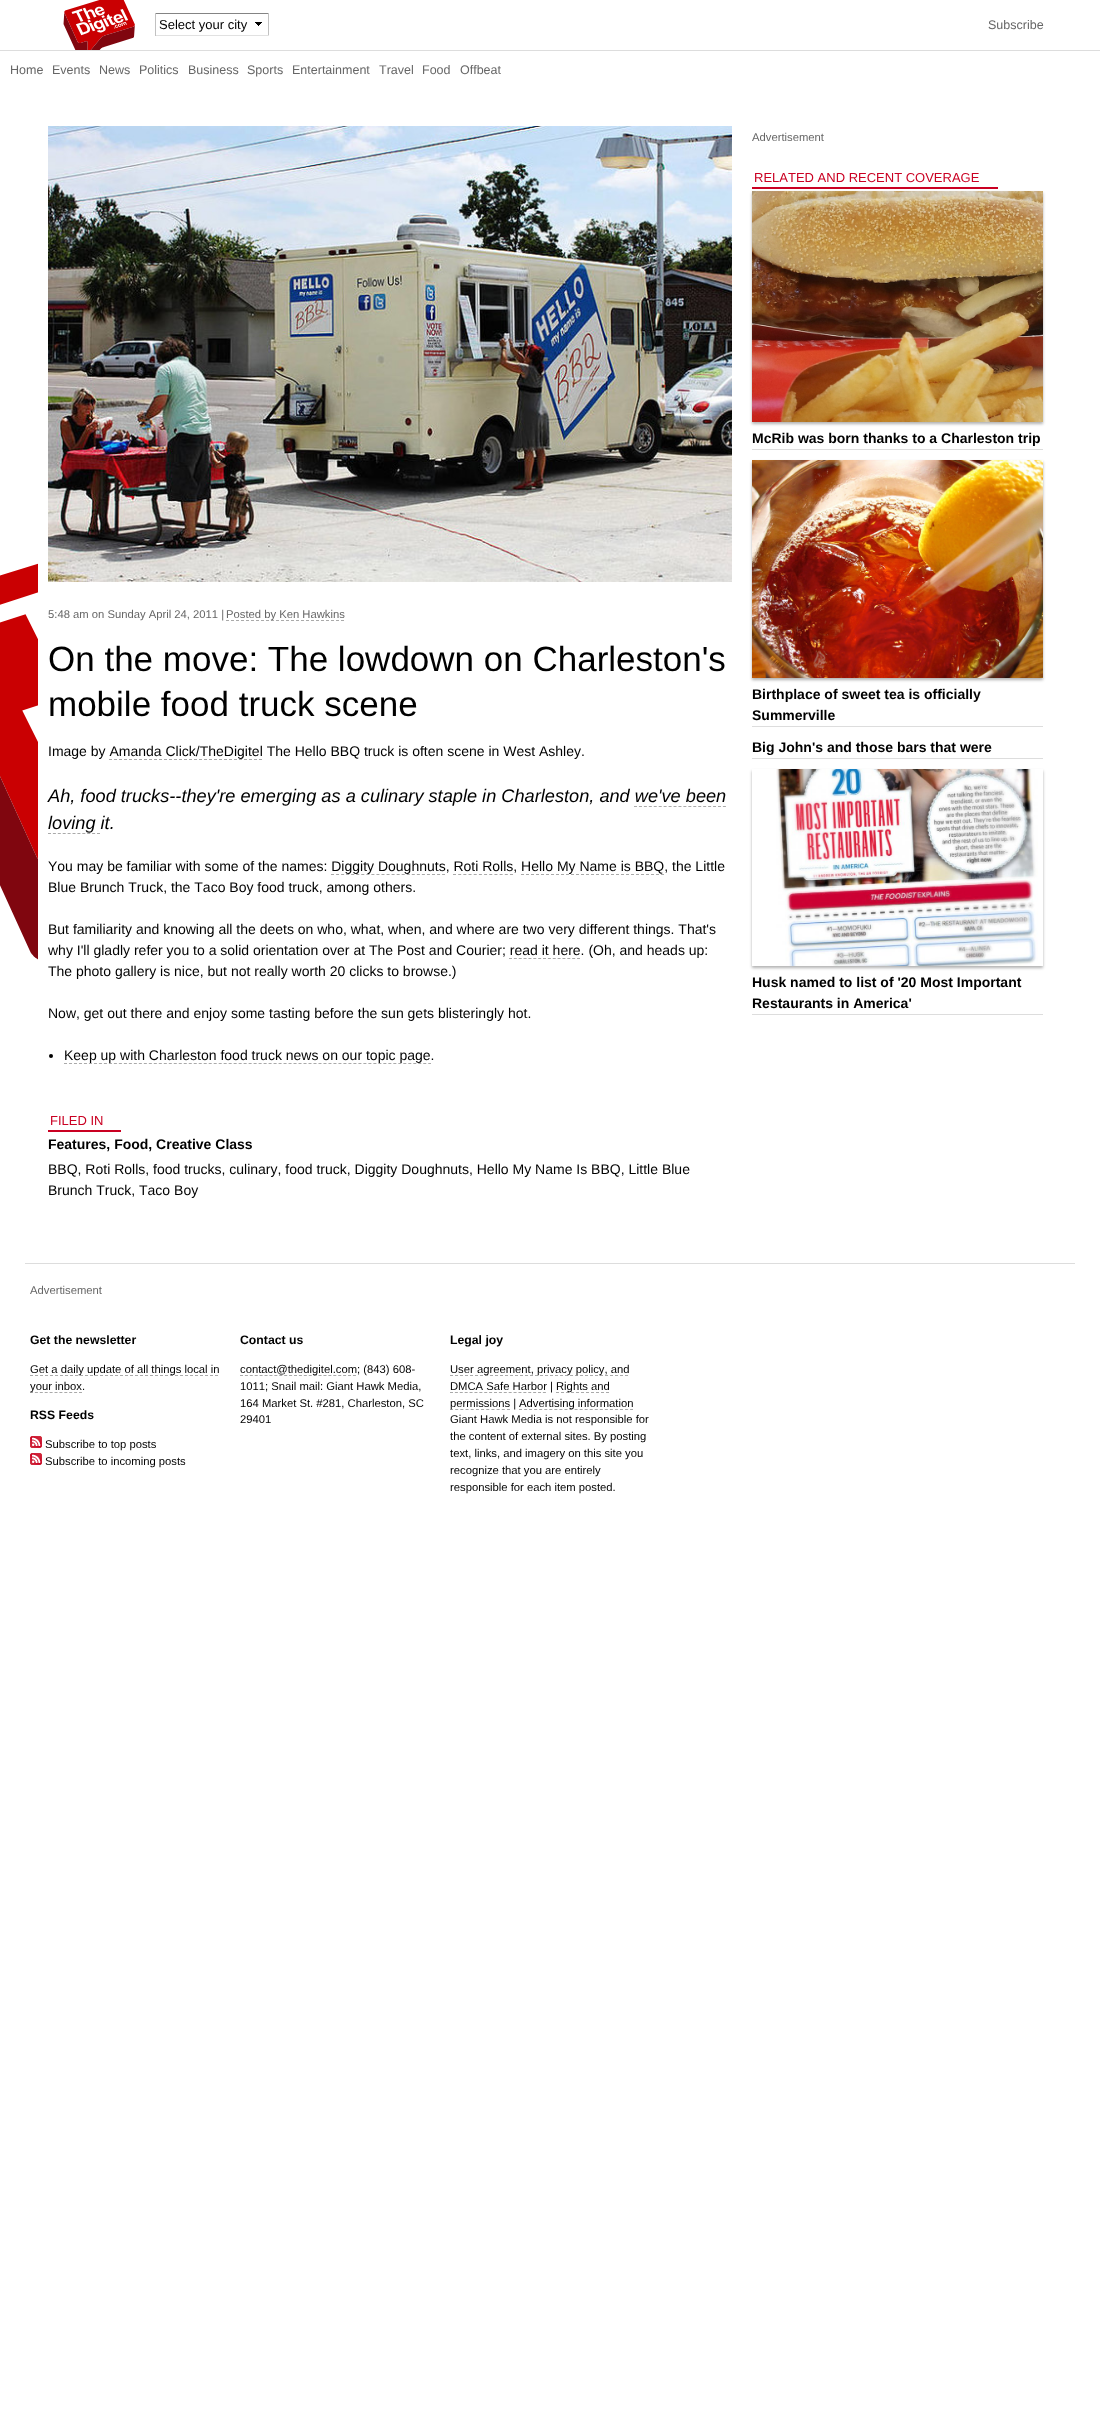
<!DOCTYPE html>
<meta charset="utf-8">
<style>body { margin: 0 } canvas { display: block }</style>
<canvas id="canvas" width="1100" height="2414"></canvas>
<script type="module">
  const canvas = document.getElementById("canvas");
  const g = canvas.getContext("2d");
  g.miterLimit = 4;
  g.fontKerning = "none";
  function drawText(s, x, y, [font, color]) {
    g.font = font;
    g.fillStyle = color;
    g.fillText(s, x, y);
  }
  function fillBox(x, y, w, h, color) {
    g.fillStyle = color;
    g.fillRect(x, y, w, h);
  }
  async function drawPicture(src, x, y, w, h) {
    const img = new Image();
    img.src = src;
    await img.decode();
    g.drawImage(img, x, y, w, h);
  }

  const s1 = ["13px Liberation Sans", "#000000"];
  const s2 = ["12.5px Liberation Sans", "#666666"];
  const s3 = ["11.25px Liberation Sans", "#666666"];
  const s4 = ["35px Liberation Sans", "#000000"];
  const s5 = ["14px Liberation Sans", "#000000"];
  const s6 = ["italic 18.2px Liberation Sans", "#000000"];
  const s7 = ["13px Liberation Sans", "#CA0022"];
  const s8 = ["bold 14px Liberation Sans", "#000000"];
  const s9 = ["bold 12.25px Liberation Sans", "#000000"];
  const s10 = ["11.25px Liberation Sans", "#000000"];

  fillBox(0, 0, 1100, 2414, "#FFFFFF");
  await drawPicture("pic1.png", 0, 563, 38, 397);
  fillBox(0, 50, 1100, 1, "#DDDDDD");
  await drawPicture("pic2.png", 63, 0, 72, 50);
  await drawPicture("pic3.png", 255, 22, 7, 4);
  fillBox(155, 13, 114, 1, "#848484");
  fillBox(268, 13, 1, 23, "#C1C1C1");
  fillBox(155, 35, 114, 1, "#E1E1E1");
  fillBox(155, 13, 1, 23, "#C1C1C1");
  drawText("Select your city", 159, 29, s1);
  drawText("Subscribe", 988, 29, s2);
  drawText("Home", 10, 74, s2);
  drawText("Events", 52, 74, s2);
  drawText("News", 99, 74, s2);
  drawText("Politics", 139, 74, s2);
  drawText("Business", 188, 74, s2);
  drawText("Sports", 247, 74, s2);
  drawText("Entertainment", 292, 74, s2);
  drawText("Travel", 379, 74, s2);
  drawText("Food", 422, 74, s2);
  drawText("Offbeat", 460, 74, s2);
  await drawPicture("pic4.png", 48, 126, 684, 456);
  drawText("5:48 am on Sunday April 24, 2011 |", 48, 618, s3);
  g.beginPath();
  g.moveTo(226, 620.5);
  g.lineTo(344, 620.5);
  g.strokeStyle = "#AAAAAA";
  g.setLineDash([3, 2]);
  g.stroke();
  drawText("Posted by Ken Hawkins", 226, 618, s3);
  drawText("On the move: The lowdown on Charleston's", 48, 671, s4);
  drawText("mobile food truck scene", 48, 716, s4);
  drawText("Image by Amanda Click/TheDigitel The Hello BBQ truck is often scene in West Ashley.", 48, 756, s5);
  g.beginPath();
  g.moveTo(109, 759.5);
  g.lineTo(262, 759.5);
  g.stroke();
  drawText("Ah, food trucks--they're emerging as a culinary staple in Charleston, and we've been", 48, 802, s6);
  drawText("loving it.", 48, 829, s6);
  g.beginPath();
  g.moveTo(634, 806.5);
  g.lineTo(726, 806.5);
  g.setLineDash([3, 1.94]);
  g.stroke();
  g.beginPath();
  g.moveTo(48, 833.5);
  g.lineTo(100, 833.5);
  g.setLineDash([3, 1.9]);
  g.stroke();
  drawText("You may be familiar with some of the names: Diggity Doughnuts, Roti Rolls, Hello My Name is BBQ, the Little", 48, 871, s5);
  g.beginPath();
  g.moveTo(331, 874.5);
  g.lineTo(445, 874.5);
  g.setLineDash([3, 2.05]);
  g.stroke();
  g.beginPath();
  g.moveTo(453, 874.5);
  g.lineTo(513, 874.5);
  g.setLineDash([3, 2.18]);
  g.stroke();
  g.beginPath();
  g.moveTo(521, 874.5);
  g.lineTo(664, 874.5);
  g.setLineDash([3, 2]);
  g.stroke();
  drawText("Blue Brunch Truck, the Taco Boy food truck, among others.", 48, 892, s5);
  drawText("But familiarity and knowing all the deets on who, what, when, and where are two very different things. That's", 48, 934, s5);
  drawText("why I'll gladly refer you to a solid orientation over at The Post and Courier; read it here. (Oh, and heads up:", 48, 955, s5);
  g.beginPath();
  g.moveTo(509, 958.5);
  g.lineTo(580, 958.5);
  g.setLineDash([3, 1.86]);
  g.stroke();
  drawText("The photo gallery is nice, but not really worth 20 clicks to browse.)", 48, 976, s5);
  drawText("Now, get out there and enjoy some tasting before the sun gets blisteringly hot.", 48, 1018, s5);
  g.beginPath();
  g.arc(51, 1056, 2, 0, Math.PI * 2);
  g.fill();
  drawText("Keep up with Charleston food truck news on our topic page.", 64, 1060, s5);
  g.beginPath();
  g.moveTo(64, 1063.5);
  g.lineTo(431, 1063.5);
  g.setLineDash([3, 1.99]);
  g.stroke();
  fillBox(48, 1130, 73, 2, "#CA0022");
  drawText("FILED IN", 50, 1125, s7);
  drawText("Features, Food, Creative Class", 48, 1149, s8);
  drawText("BBQ, Roti Rolls, food trucks, culinary, food truck, Diggity Doughnuts, Hello My Name Is BBQ, Little Blue", 48, 1174, s5);
  drawText("Brunch Truck, Taco Boy", 48, 1195, s5);
  drawText("Advertisement", 752, 141, s3);
  fillBox(752, 187, 246, 2, "#CA0022");
  drawText("RELATED AND RECENT COVERAGE", 754, 182, s7);
  fillBox(752, 449, 291, 1, "#DDDDDD");
  g.fillStyle = "rgba(0, 0, 0, 0.3)";
  g.filter = "blur(1.5px)";
  g.beginPath();
  g.rect(752, 193, 291, 231);
  g.fill();
  g.filter = "none";
  await drawPicture("pic5.png", 752, 191, 291, 231);
  drawText("McRib was born thanks to a Charleston trip", 752, 443, s8);
  fillBox(752, 726, 291, 1, "#DDDDDD");
  g.fillStyle = "rgba(0, 0, 0, 0.3)";
  g.filter = "blur(1.5px)";
  g.beginPath();
  g.rect(752, 462, 291, 218);
  g.fill();
  g.filter = "none";
  await drawPicture("pic6.png", 752, 460, 291, 218);
  drawText("Birthplace of sweet tea is officially", 752, 699, s8);
  drawText("Summerville", 752, 720, s8);
  fillBox(752, 758, 291, 1, "#DDDDDD");
  drawText("Big John's and those bars that were", 752, 752, s8);
  fillBox(752, 1014, 291, 1, "#DDDDDD");
  g.save();
  g.beginPath();
  g.moveTo(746, 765);
  g.lineTo(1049, 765);
  g.lineTo(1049, 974);
  g.lineTo(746, 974);
  g.closePath();
  g.moveTo(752, 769);
  g.lineTo(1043, 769);
  g.lineTo(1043, 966);
  g.lineTo(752, 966);
  g.closePath();
  g.clip("evenodd");
  g.fillStyle = "rgba(0, 0, 0, 0.3)";
  g.filter = "blur(1.5px)";
  g.beginPath();
  g.rect(752, 771, 291, 197);
  g.fill();
  g.filter = "none";
  g.restore();
  await drawPicture("pic7.png", 776, 769, 262, 197);
  drawText("Husk named to list of '20 Most Important", 752, 987, s8);
  drawText("Restaurants in America'", 752, 1008, s8);
  fillBox(25, 1263, 1050, 1, "#DDDDDD");
  drawText("Advertisement", 30, 1294, s3);
  drawText("Get the newsletter", 30, 1344, s9);
  g.beginPath();
  g.moveTo(30, 1375.5);
  g.lineTo(218, 1375.5);
  g.setLineDash([3, 2]);
  g.stroke();
  drawText("Get a daily update of all things local in", 30, 1373, s10);
  g.beginPath();
  g.moveTo(30, 1392.5);
  g.lineTo(82, 1392.5);
  g.setLineDash([3, 1.9]);
  g.stroke();
  drawText("your inbox.", 30, 1390, s10);
  drawText("RSS Feeds", 30, 1419, s9);
  await drawPicture("pic8.png", 30, 1436, 12, 12);
  drawText("Subscribe to top posts", 45, 1448, s10);
  await drawPicture("pic8.png", 30, 1453, 12, 12);
  drawText("Subscribe to incoming posts", 45, 1465, s10);
  drawText("Contact us", 240, 1344, s9);
  g.beginPath();
  g.moveTo(240, 1375.5);
  g.lineTo(356, 1375.5);
  g.setLineDash([3, 1.91]);
  g.stroke();
  drawText("contact@thedigitel.com; (843) 608-", 240, 1373, s10);
  drawText("1011; Snail mail: Giant Hawk Media,", 240, 1390, s10);
  drawText("164 Market St. #281, Charleston, SC", 240, 1407, s10);
  drawText("29401", 240, 1423, s10);
  drawText("Legal joy", 450, 1344, s9);
  g.beginPath();
  g.moveTo(450, 1375.5);
  g.lineTo(628, 1375.5);
  g.setLineDash([3, 2]);
  g.stroke();
  drawText("User agreement, privacy policy, and", 450, 1373, s10);
  g.beginPath();
  g.moveTo(450, 1392.5);
  g.lineTo(546, 1392.5);
  g.setLineDash([3, 1.89]);
  g.stroke();
  drawText("DMCA Safe Harbor |", 450, 1390, s10);
  g.beginPath();
  g.moveTo(556, 1392.5);
  g.lineTo(609, 1392.5);
  g.setLineDash([3, 2]);
  g.stroke();
  drawText("Rights and", 556, 1390, s10);
  g.beginPath();
  g.moveTo(450, 1409.5);
  g.lineTo(510, 1409.5);
  g.setLineDash([3, 2.18]);
  g.stroke();
  drawText("permissions |", 450, 1407, s10);
  g.beginPath();
  g.moveTo(519, 1409.5);
  g.lineTo(633, 1409.5);
  g.setLineDash([3, 2.05]);
  g.stroke();
  drawText("Advertising information", 519, 1407, s10);
  drawText("Giant Hawk Media is not responsible for", 450, 1423, s10);
  drawText("the content of external sites. By posting", 450, 1440, s10);
  drawText("text, links, and imagery on this site you", 450, 1457, s10);
  drawText("recognize that you are entirely", 450, 1474, s10);
  drawText("responsible for each item posted.", 450, 1491, s10);
</script>
